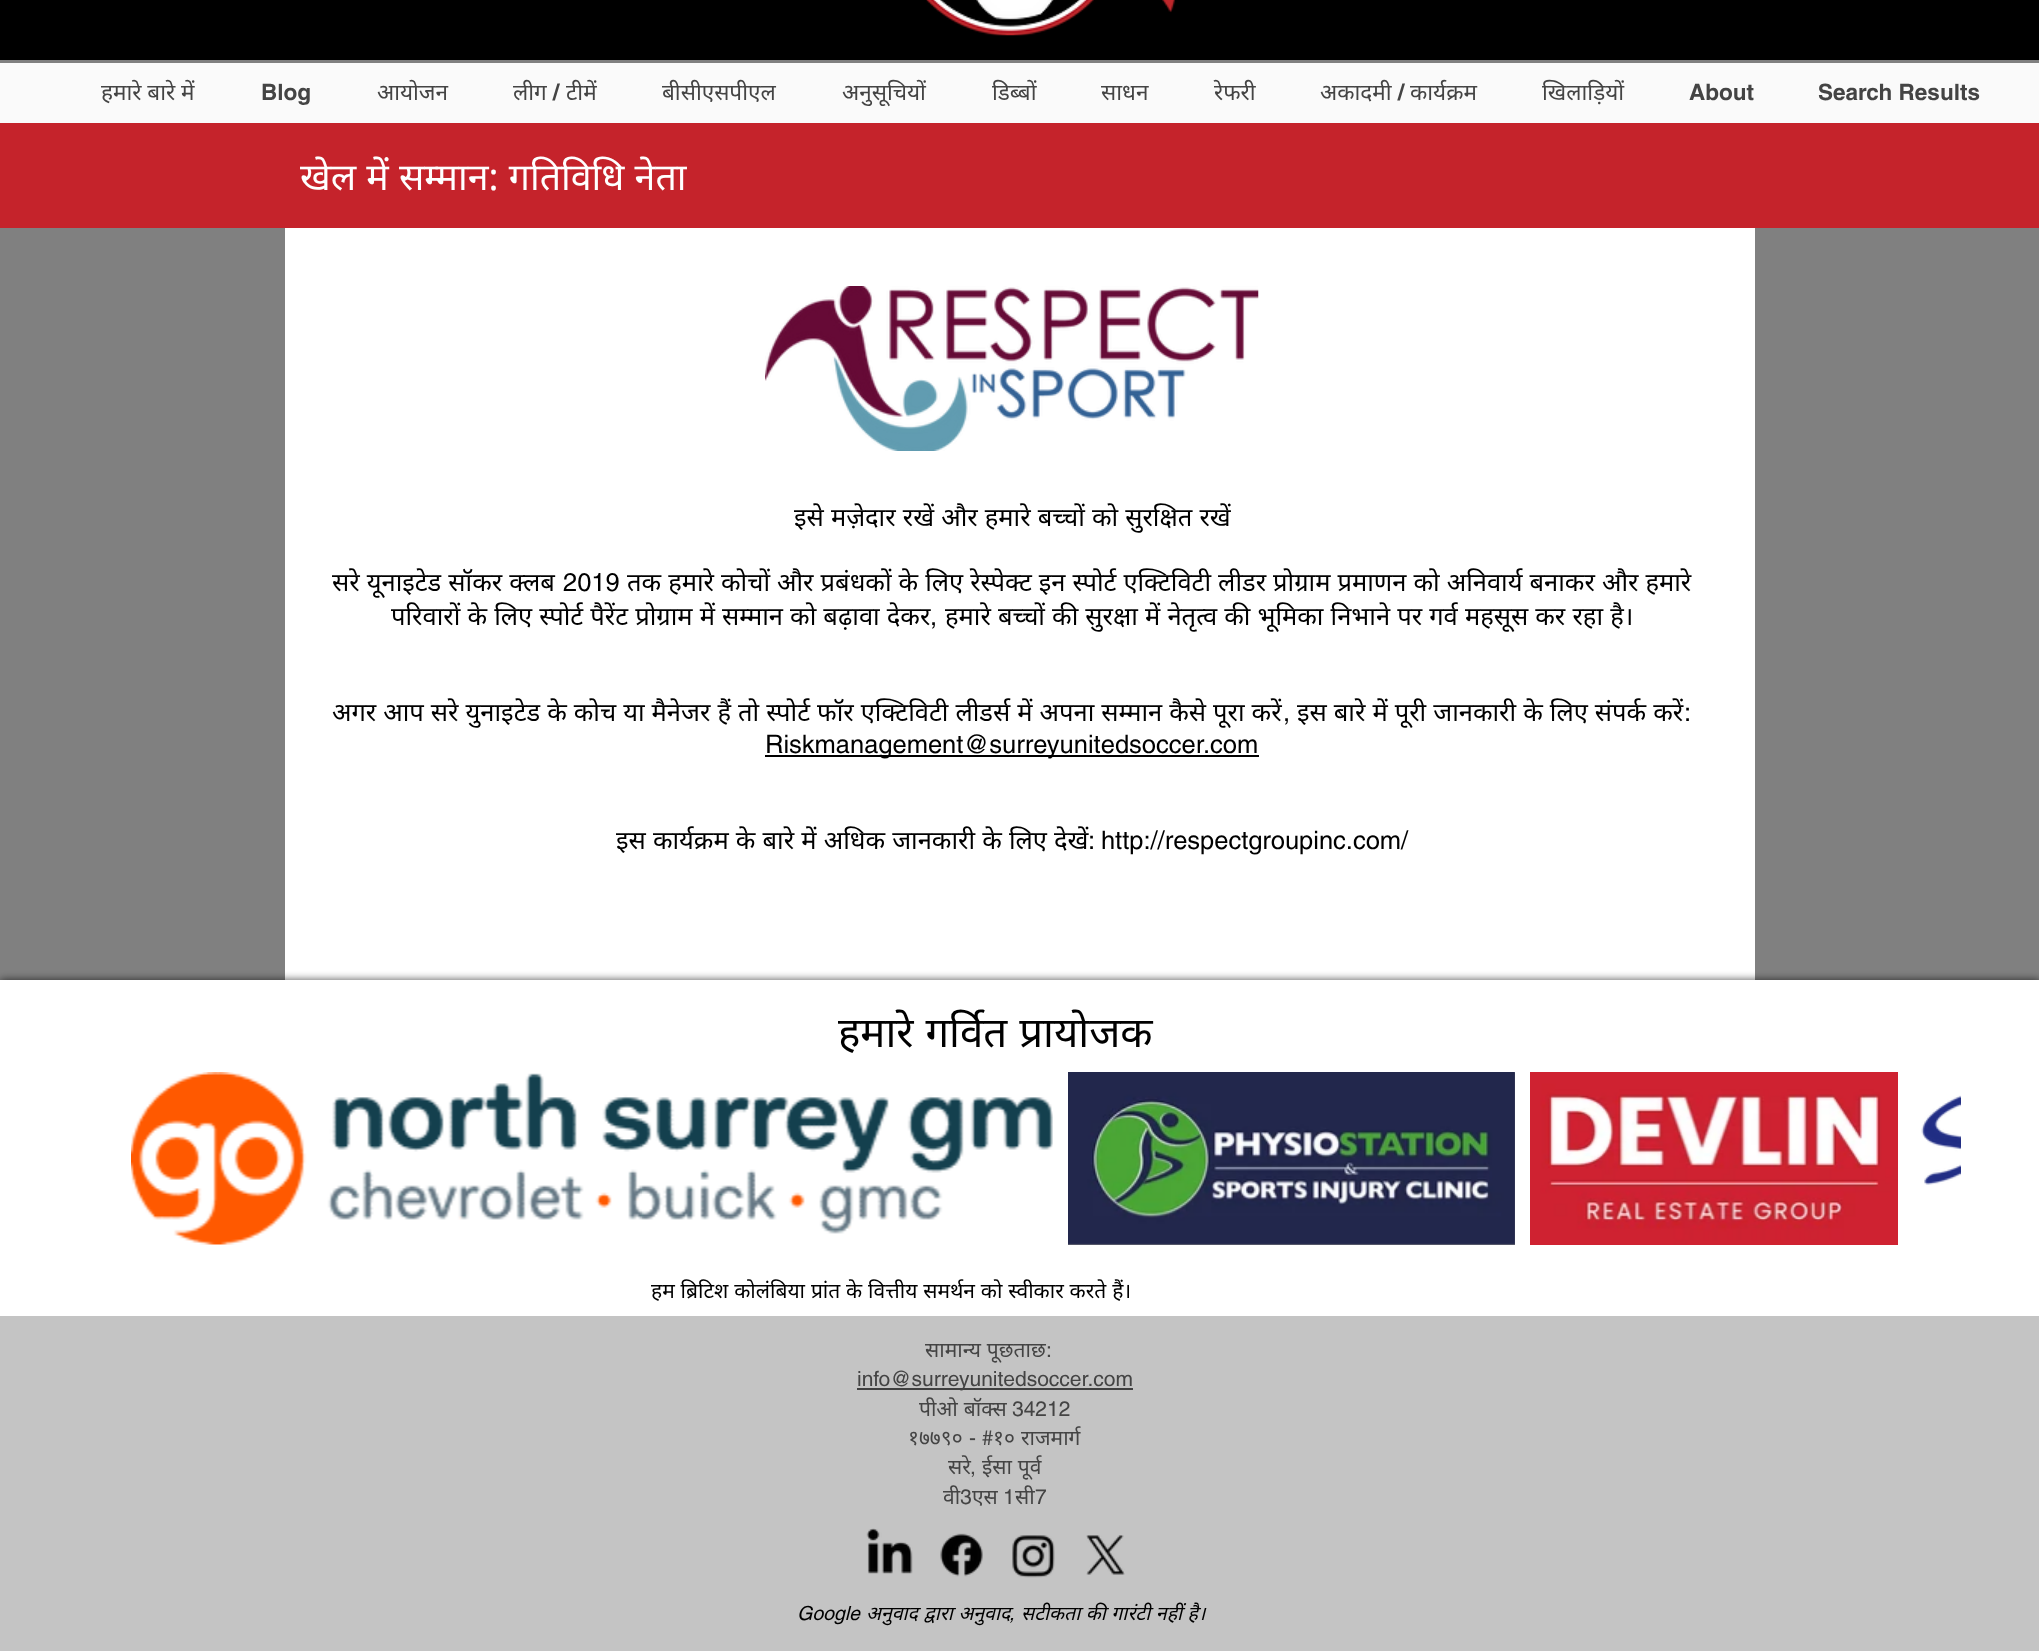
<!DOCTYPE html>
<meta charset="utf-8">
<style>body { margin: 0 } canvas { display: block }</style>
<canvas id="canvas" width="2039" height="1651"></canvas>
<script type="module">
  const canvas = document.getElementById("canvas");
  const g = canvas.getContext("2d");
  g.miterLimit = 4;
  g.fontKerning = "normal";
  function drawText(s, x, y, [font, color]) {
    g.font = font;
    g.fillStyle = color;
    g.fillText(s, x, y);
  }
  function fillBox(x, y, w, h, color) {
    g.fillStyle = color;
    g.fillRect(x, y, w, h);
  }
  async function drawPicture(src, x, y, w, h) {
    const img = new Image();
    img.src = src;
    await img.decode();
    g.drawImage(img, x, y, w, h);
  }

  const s1 = ["22.5px Noto Sans", "#444444"];
  const s2 = ["bold 22.5px helvetica", "#444444"];
  const s3 = ["37.5px Noto Sans", "#FFFFFF"];
  const s4 = ["25.5px Noto Sans", "#000000"];
  const s5 = ["25.5px helvetica", "#000000"];
  const s6 = ["42px Noto Sans", "#000000"];
  const s7 = ["21px Noto Sans", "#000000"];
  const s8 = ["21px Noto Sans", "#444444"];
  const s9 = ["21px helvetica", "#444444"];
  const s10 = ["italic 19.5px helvetica", "#000000"];
  const s11 = ["italic 19.5px Noto Sans", "#000000"];

  fillBox(0, 0, 2039, 1651, "#808080");
  fillBox(0, 0, 2039, 60, "#000000");
  await drawPicture("pic1.png", 926, 0, 249, 36);
  fillBox(0, 63, 2039, 60, "#FAFAFA");
  drawText("हमारे बारे में", 101, 100, s1);
  drawText("Blog", 261, 100, s2);
  drawText("आयोजन", 377, 100, s1);
  drawText("लीग", 513, 100, s1);
  drawText("/", 553, 100, s2);
  drawText("टीमें", 566, 100, s1);
  drawText("बीसीएसपीएल", 662, 100, s1);
  drawText("अनुसूचियों", 842, 100, s1);
  drawText("डिब्बों", 992, 100, s1);
  drawText("साधन", 1101, 100, s1);
  drawText("रेफरी", 1214, 100, s1);
  drawText("अकादमी", 1320, 100, s1);
  drawText("/", 1398, 100, s2);
  drawText("कार्यक्रम", 1410, 100, s1);
  drawText("खिलाड़ियों", 1542, 100, s1);
  drawText("About", 1689, 100, s2);
  drawText("Search Results", 1818, 100, s2);
  fillBox(0, 123, 2039, 105, "#C5232B");
  g.wordSpacing = "0.5px";
  drawText("खेल में सम्मान: गतिविधि नेता", 300, 190, s3);
  fillBox(285, 228, 1470, 752, "#FFFFFF");
  await drawPicture("pic2.png", 765, 286, 494, 165);
  drawText("इसे मज़ेदार रखें और हमारे बच्चों को सुरक्षित रखें", 794, 526, s4);
  g.wordSpacing = "0.4px";
  drawText("सरे यूनाइटेड सॉकर क्लब", 332, 591, s4);
  g.wordSpacing = "0px";
  drawText("2019", 563, 591, s5);
  g.wordSpacing = "0.4px";
  drawText("तक हमारे कोचों और प्रबंधकों के लिए रेस्पेक्ट इन स्पोर्ट एक्टिविटी लीडर प्रोग्राम प्रमाणन को अनिवार्य बनाकर और हमारे", 627, 591, s4);
  g.wordSpacing = "0.5px";
  drawText("परिवारों के लिए स्पोर्ट पैरेंट प्रोग्राम में सम्मान को बढ़ावा देकर", 391, 625, s4);
  g.wordSpacing = "0px";
  drawText(",", 930, 625, s5);
  g.wordSpacing = "0.5px";
  drawText("हमारे बच्चों की सुरक्षा में नेतृत्व की भूमिका निभाने पर गर्व महसूस कर रहा है।", 945, 625, s4);
  g.wordSpacing = "0.4px";
  drawText("अगर आप सरे युनाइटेड के कोच या मैनेजर हैं तो स्पोर्ट फॉर एक्टिविटी लीडर्स में अपना सम्मान कैसे पूरा करें", 332, 721, s4);
  g.wordSpacing = "0px";
  drawText(",", 1283, 721, s5);
  g.wordSpacing = "0.4px";
  drawText("इस बारे में पूरी जानकारी के लिए संपर्क करें", 1297, 721, s4);
  g.wordSpacing = "0px";
  drawText(":", 1684, 721, s5);
  fillBox(765, 755, 494, 2, "#000000");
  drawText("Riskmanagement@surreyunitedsoccer.com", 765, 753, s5);
  g.wordSpacing = "0.5px";
  drawText("इस कार्यक्रम के बारे में अधिक जानकारी के लिए देखें", 616, 849, s4);
  g.wordSpacing = "0px";
  drawText(": http://respectgroupinc.com/", 1088, 849, s5);
  g.fillStyle = "rgba(0, 0, 0, 0.7)";
  g.filter = "blur(4px)";
  g.beginPath();
  g.rect(0, 980, 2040, 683);
  g.fill();
  g.filter = "none";
  fillBox(0, 980, 2039, 336, "#FFFFFF");
  g.wordSpacing = "1px";
  drawText("हमारे गर्वित प्रायोजक", 838, 1047, s6);
  await drawPicture("pic3.png", 131, 1072, 922, 173);
  fillBox(1068, 1073, 447, 172, "#808080");
  await drawPicture("pic4.png", 1068, 1072, 447, 173);
  await drawPicture("pic5.png", 1530, 1072, 368, 173);
  await drawPicture("pic6.png", 1921, 1095, 40, 90);
  g.wordSpacing = "0.4px";
  drawText("हम ब्रिटिश कोलंबिया प्रांत के वित्तीय समर्थन को स्वीकार करते हैं।", 651, 1298, s7);
  fillBox(0, 1316, 2039, 335, "#C4C4C4");
  drawText("सामान्य पूछताछ", 925, 1357, s8);
  g.wordSpacing = "0px";
  drawText(":", 1046, 1357, s9);
  fillBox(857, 1388, 276, 2, "#404040");
  drawText("info@surreyunitedsoccer.com", 857, 1386, s9);
  g.wordSpacing = "0.4px";
  drawText("पीओ बॉक्स", 919, 1416, s8);
  g.wordSpacing = "0px";
  drawText("34212", 1012, 1416, s9);
  drawText("१७७९०", 908, 1445, s8);
  drawText("- #", 969, 1445, s9);
  drawText("१०", 993, 1445, s8);
  drawText("राजमार्ग", 1021, 1445, s8);
  drawText("सरे", 948, 1474, s8);
  drawText(",", 970, 1474, s9);
  g.wordSpacing = "0.4px";
  drawText("ईसा पूर्व", 982, 1474, s8);
  g.wordSpacing = "0px";
  drawText("वी", 943, 1504, s8);
  drawText("3", 960, 1504, s9);
  drawText("एस", 972, 1504, s8);
  drawText("1", 1003, 1504, s9);
  drawText("सी", 1015, 1504, s8);
  drawText("7", 1035, 1504, s9);
  await drawPicture("pic7.png", 866, 1528, 47, 46);
  await drawPicture("pic8.png", 940, 1533, 43, 44);
  await drawPicture("pic9.png", 1012, 1535, 43, 43);
  await drawPicture("pic10.png", 1086, 1535, 39, 40);
  drawText("Google", 797, 1620, s10);
  g.wordSpacing = "0.5px";
  drawText("अनुवाद द्वारा अनुवाद", 866, 1620, s11);
  drawText("सटीकता की गारंटी नहीं है।", 1021, 1620, s11);
  g.wordSpacing = "0px";
  drawText(",", 1009, 1620, s10);
</script>
